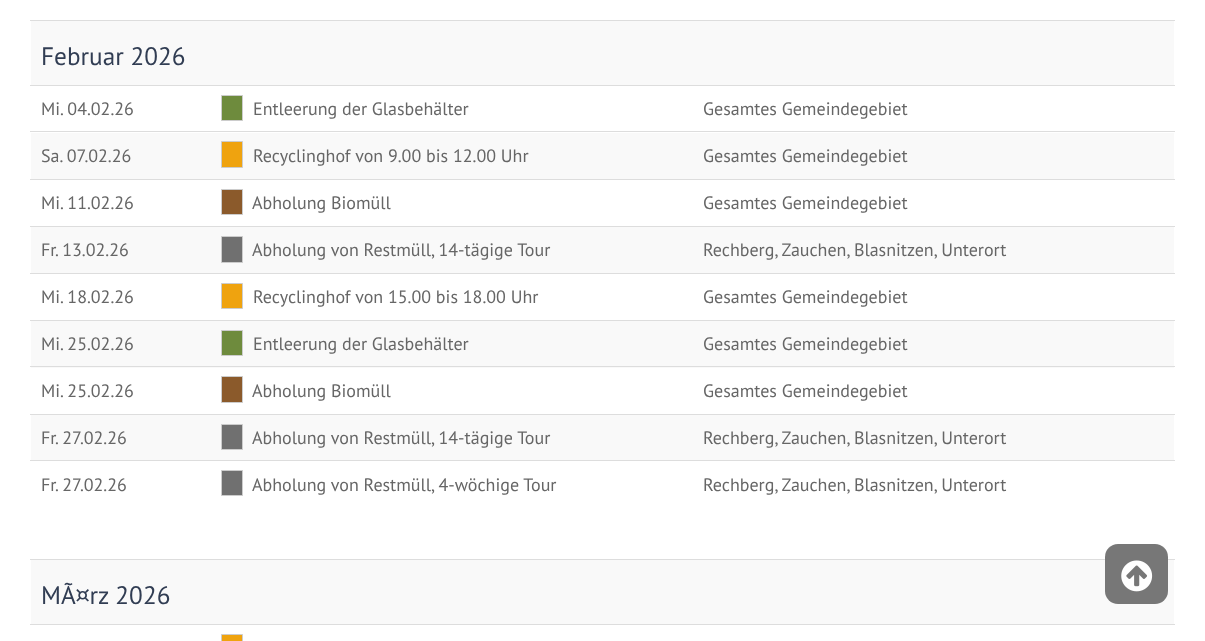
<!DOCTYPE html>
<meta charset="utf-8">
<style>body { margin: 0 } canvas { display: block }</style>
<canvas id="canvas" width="1205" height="641"></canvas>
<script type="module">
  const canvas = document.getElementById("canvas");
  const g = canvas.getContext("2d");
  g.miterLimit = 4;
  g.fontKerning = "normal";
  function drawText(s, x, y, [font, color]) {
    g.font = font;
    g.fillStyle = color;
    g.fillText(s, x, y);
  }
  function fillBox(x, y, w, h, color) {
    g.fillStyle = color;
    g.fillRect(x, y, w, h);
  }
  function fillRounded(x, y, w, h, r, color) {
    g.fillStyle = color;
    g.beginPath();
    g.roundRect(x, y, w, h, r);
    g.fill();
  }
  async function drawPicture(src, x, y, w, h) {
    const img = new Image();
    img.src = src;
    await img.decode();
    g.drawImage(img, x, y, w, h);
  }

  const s1 = ["25.25px PT Sans", "#313D53"];
  const s2 = ["18px PT Sans", "#666666"];

  fillBox(0, 0, 1205, 641, "#FFFFFF");
  fillBox(31, 21, 1143, 64, "#F9F9F9");
  fillBox(30, 20, 1145, 1, "#DDDDDD");
  drawText("Februar 2026", 41, 65, s1);
  drawText("Mi. 04.02.26", 41, 115, s2);
  g.fillStyle = "#6E8B3D";
  g.beginPath();
  g.rect(221.5, 95.5, 21, 25);
  g.fill();
  g.strokeStyle = "#CCCCCC";
  g.stroke();
  drawText("Entleerung der Glasbehälter", 253, 115, s2);
  fillBox(30, 85, 1145, 1, "#DDDDDD");
  drawText("Gesamtes Gemeindegebiet", 703, 115, s2);
  fillBox(31, 133, 1143, 46, "#F9F9F9");
  drawText("Sa. 07.02.26", 41, 162, s2);
  g.fillStyle = "#EFA30F";
  g.beginPath();
  g.rect(221.5, 141.5, 21, 26);
  g.fill();
  g.stroke();
  drawText("Recyclinghof von 9.00 bis 12.00 Uhr", 253, 162, s2);
  fillBox(30, 131, 1145, 1, "#DDDDDD");
  drawText("Gesamtes Gemeindegebiet", 703, 162, s2);
  drawText("Mi. 11.02.26", 41, 209, s2);
  g.fillStyle = "#8B5A2B";
  g.beginPath();
  g.rect(221.5, 189.5, 21, 25);
  g.fill();
  g.stroke();
  drawText("Abholung Biomüll", 252, 209, s2);
  fillBox(30, 179, 1145, 1, "#DDDDDD");
  drawText("Gesamtes Gemeindegebiet", 703, 209, s2);
  fillBox(31, 227, 1143, 46, "#F9F9F9");
  drawText("Fr", 41, 256, s2);
  drawText(". 13.02.26", 55, 256, s2);
  g.fillStyle = "#707070";
  g.beginPath();
  g.rect(221.5, 236.5, 21, 26);
  g.fill();
  g.stroke();
  drawText("Abholung von Restmüll, 14-tägige Tour", 252, 256, s2);
  fillBox(30, 226, 1145, 1, "#DDDDDD");
  drawText("Rechberg, Zauchen, Blasnitzen, Unterort", 703, 256, s2);
  drawText("Mi. 18.02.26", 41, 303, s2);
  g.fillStyle = "#EFA30F";
  g.beginPath();
  g.rect(221.5, 283.5, 21, 25);
  g.fill();
  g.stroke();
  drawText("Recyclinghof von 15.00 bis 18.00 Uhr", 253, 303, s2);
  fillBox(30, 273, 1145, 1, "#DDDDDD");
  drawText("Gesamtes Gemeindegebiet", 703, 303, s2);
  fillBox(31, 321, 1143, 47, "#F9F9F9");
  drawText("Mi. 25.02.26", 41, 350, s2);
  g.fillStyle = "#6E8B3D";
  g.beginPath();
  g.rect(221.5, 330.5, 21, 25);
  g.fill();
  g.stroke();
  drawText("Entleerung der Glasbehälter", 253, 350, s2);
  fillBox(30, 320, 1145, 1, "#DDDDDD");
  drawText("Gesamtes Gemeindegebiet", 703, 350, s2);
  drawText("Mi. 25.02.26", 41, 397, s2);
  g.fillStyle = "#8B5A2B";
  g.beginPath();
  g.rect(221.5, 376.5, 21, 26);
  g.fill();
  g.stroke();
  drawText("Abholung Biomüll", 252, 397, s2);
  fillBox(30, 366, 1145, 1, "#DDDDDD");
  drawText("Gesamtes Gemeindegebiet", 703, 397, s2);
  fillBox(31, 415, 1143, 45, "#F9F9F9");
  drawText("Fr", 41, 444, s2);
  drawText(". 27.02.26", 55, 444, s2);
  g.fillStyle = "#707070";
  g.beginPath();
  g.rect(221.5, 424.5, 21, 25);
  g.fill();
  g.stroke();
  drawText("Abholung von Restmüll, 14-tägige Tour", 252, 444, s2);
  fillBox(30, 414, 1145, 1, "#DDDDDD");
  drawText("Rechberg, Zauchen, Blasnitzen, Unterort", 703, 444, s2);
  drawText("Fr", 41, 491, s2);
  drawText(". 27.02.26", 55, 491, s2);
  g.fillStyle = "#707070";
  g.beginPath();
  g.rect(221.5, 470.5, 21, 25);
  g.fill();
  g.stroke();
  drawText("Abholung von Restmüll, 4-wöchige Tour", 252, 491, s2);
  fillBox(30, 460, 1145, 1, "#DDDDDD");
  drawText("Rechberg, Zauchen, Blasnitzen, Unterort", 703, 491, s2);
  fillBox(31, 560, 1143, 64, "#F9F9F9");
  fillBox(30, 559, 1145, 1, "#DDDDDD");
  drawText("MÃ¤rz 2026", 41, 604, s1);
  fillBox(30, 624, 1145, 1, "#DDDDDD");
  g.fillStyle = "#EFA30F";
  g.beginPath();
  g.rect(221.5, 634.5, 21, 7);
  g.fill();
  g.stroke();
  fillRounded(1105, 544, 63, 60, 13, "#777777");
  await drawPicture("pic1.png", 1121, 560, 32, 32);
</script>
